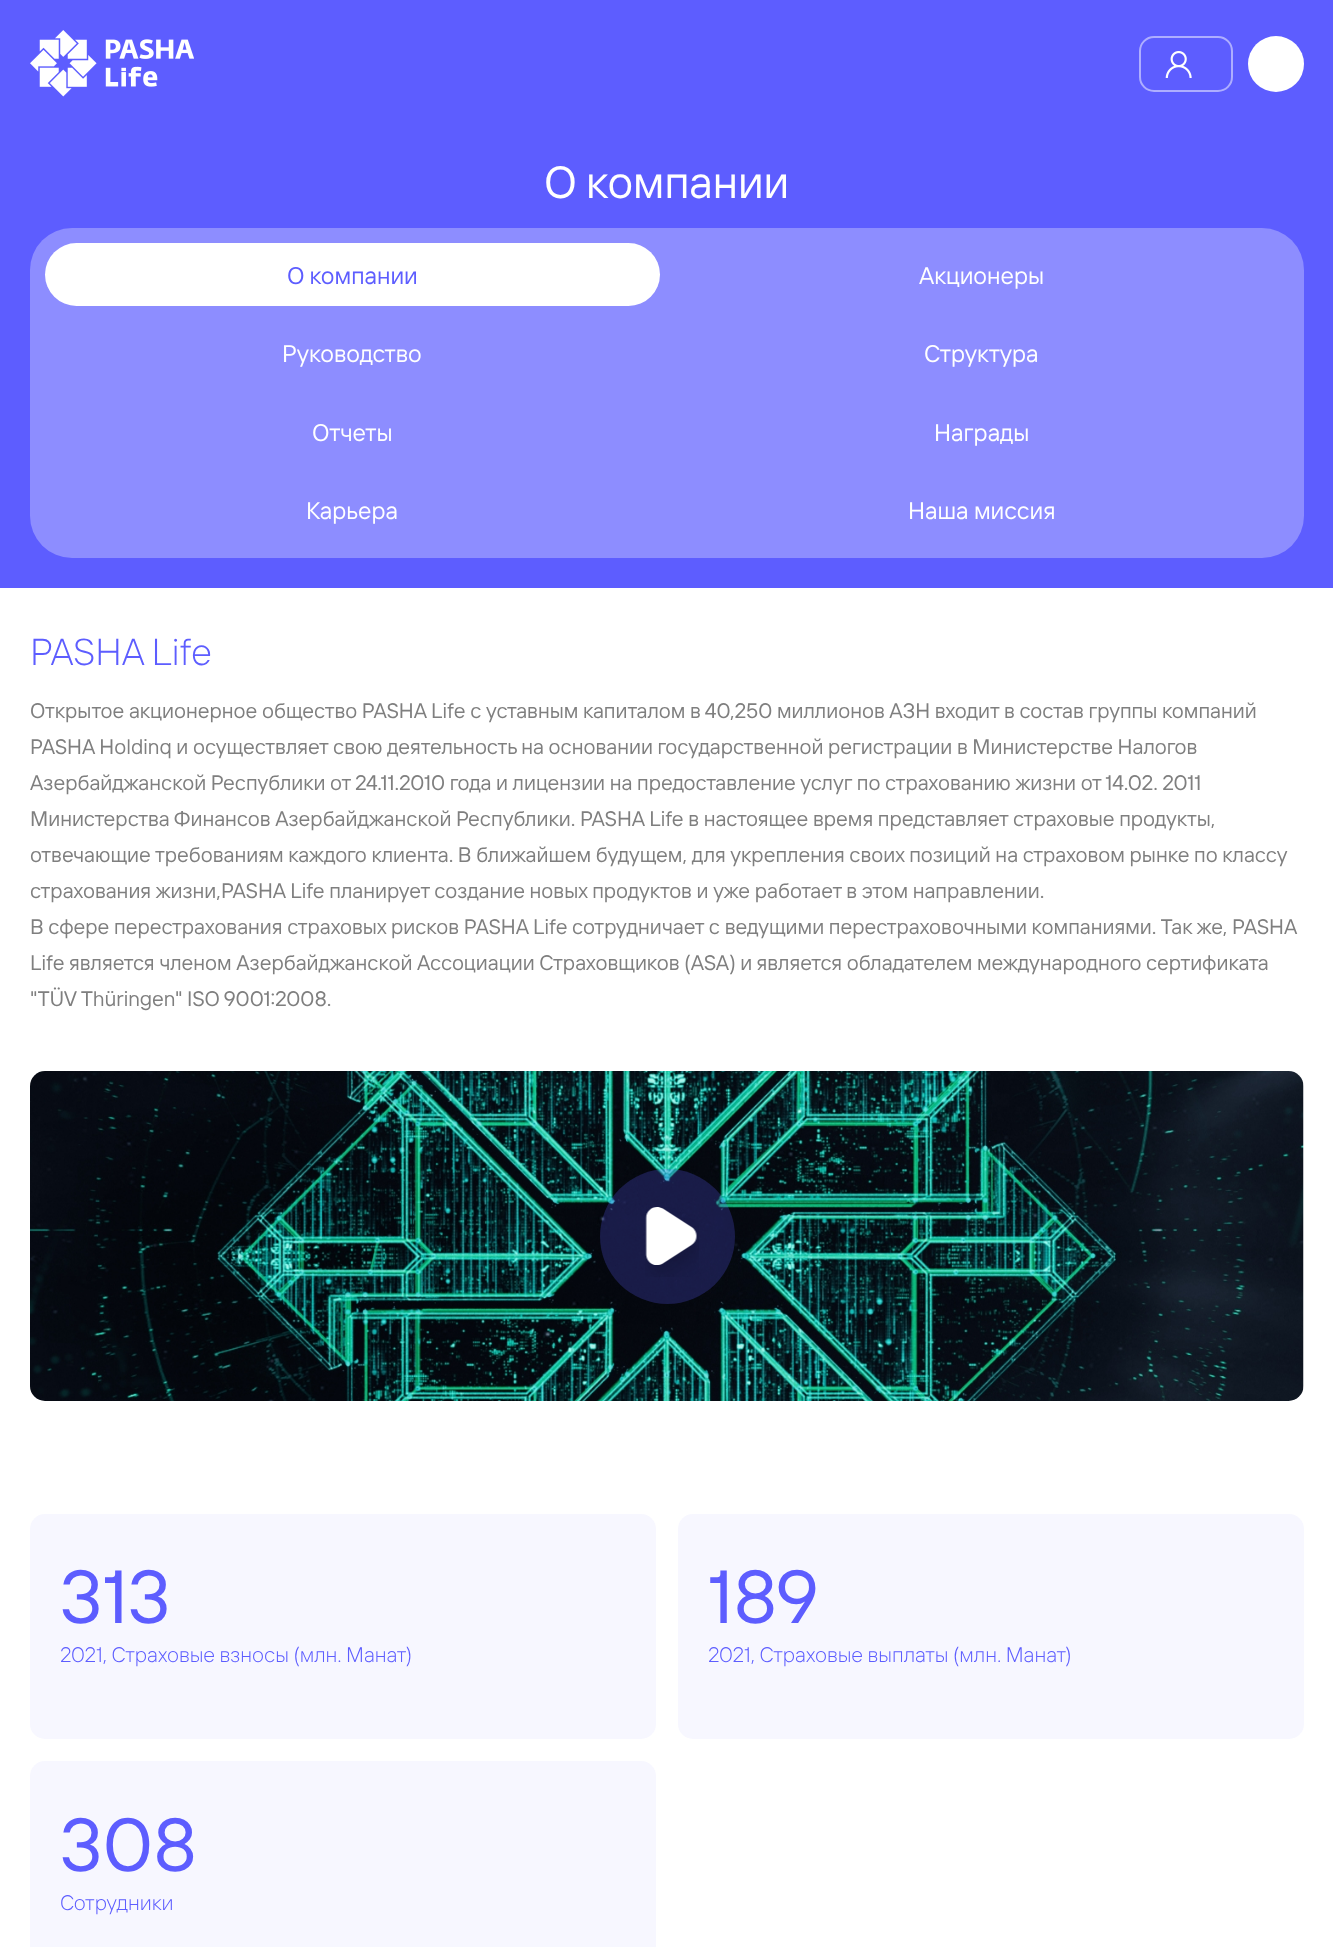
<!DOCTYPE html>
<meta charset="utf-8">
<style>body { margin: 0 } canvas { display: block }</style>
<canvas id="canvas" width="1333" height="1947"></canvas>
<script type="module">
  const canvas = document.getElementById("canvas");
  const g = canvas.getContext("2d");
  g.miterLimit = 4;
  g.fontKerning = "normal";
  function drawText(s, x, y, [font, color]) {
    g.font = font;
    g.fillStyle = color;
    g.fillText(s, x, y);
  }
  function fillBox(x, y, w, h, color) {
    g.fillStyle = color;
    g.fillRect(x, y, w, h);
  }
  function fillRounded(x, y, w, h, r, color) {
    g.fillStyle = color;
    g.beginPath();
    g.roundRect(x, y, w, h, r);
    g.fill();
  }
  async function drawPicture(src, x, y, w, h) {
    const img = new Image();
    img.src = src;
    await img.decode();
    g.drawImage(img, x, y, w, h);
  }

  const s1 = ["45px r", "#FFFFFF"];
  const s2 = ["24px r", "#5D5DFF"];
  const s3 = ["24px r", "#FFFFFF"];
  const s4 = ["300 37.5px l", "#5D5DFF"];
  const s5 = ["21px r", "#7F7F7F"];
  const s6 = ["75px r", "#5D5DFF"];
  const s7 = ["300 21px l", "#5D5DFF"];

  fillBox(0, 0, 1333, 1947, "#5D5DFF");
  await drawPicture("pic1.png", 30, 30, 164, 67);
  g.beginPath();
  g.roundRect(1140, 37, 92, 54, 14);
  g.strokeStyle = "#AEAEFF";
  g.lineWidth = 2;
  g.stroke();
  await drawPicture("pic2.png", 1165, 51, 27, 27);
  g.fillStyle = "#FFFFFF";
  g.beginPath();
  g.arc(1276, 64, 28, 0, Math.PI * 2);
  g.fill();
  drawText("О компании", 544, 198, s1);
  fillRounded(30, 228, 1274, 330, 42, "#8D8DFF");
  fillRounded(45, 243, 615, 63, 31.5, "#FFFFFF");
  drawText("О компании", 287, 284, s2);
  drawText("Акционеры", 919, 284, s3);
  drawText("Руководство", 282, 362, s3);
  drawText("Структура", 924, 362, s3);
  drawText("Отчеты", 312, 441, s3);
  drawText("Награды", 934, 441, s3);
  drawText("Карьера", 306, 519, s3);
  drawText("Наша миссия", 908, 519, s3);
  fillBox(0, 588, 1333, 1359, "#FFFFFF");
  drawText("PASHA Life", 30, 665, s4);
  drawText("Открытое акционерное общество PASHA Life с уставным капиталом в 40,250 миллионов АЗН входит в состав группы компаний", 30, 718, s5);
  drawText("PASHA Holdinq и осуществляет свою деятельность на основании государственной регистрации в Министерстве Налогов", 30, 754, s5);
  drawText("Азербайджанской Республики от 24.11.2010 года и лицензии на предоставление услуг по страхованию жизни от 14.02. 2011", 30, 790, s5);
  drawText("Министерства Финансов Азербайджанской Республики. PASHA Life в настоящее время представляет страховые продукты,", 30, 826, s5);
  drawText("отвечающие требованиям каждого клиента. В ближайшем будущем, для укрепления своих позиций на страховом рынке по классу", 30, 862, s5);
  drawText("страхования жизни,PASHA Life планирует создание новых продуктов и уже работает в этом направлении.", 30, 898, s5);
  drawText("В сфере перестрахования страховых рисков PASHA Life сотрудничает с ведущими перестраховочными компаниями. Так же, PASHA", 30, 934, s5);
  drawText("Life является членом Азербайджанской Ассоциации Страховщиков (ASA) и является обладателем международного сертификата", 30, 970, s5);
  drawText("\"TÜV Thüringen\" ISO 9001:2008.", 30, 1006, s5);
  await drawPicture("pic3.png", 30, 1071, 1274, 330);
  g.fillStyle = "rgba(93, 93, 255, 0.24)";
  g.beginPath();
  g.arc(667.5, 1236.5, 67.5, 0, Math.PI * 2);
  g.fill();
  await drawPicture("pic4.png", 645, 1207, 54, 70);
  fillRounded(30, 1514, 626, 225, 15, "#F7F7FF");
  drawText("313", 60, 1623, s6);
  drawText("2021, Страховые взносы (млн. Манат)", 60, 1662, s7);
  fillRounded(678, 1514, 626, 225, 15, "#F7F7FF");
  drawText("189", 708, 1623, s6);
  drawText("2021, Страховые выплаты (млн. Манат)", 708, 1662, s7);
  fillRounded(30, 1761, 626, 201, 15, "#F7F7FF");
  drawText("308", 60, 1871, s6);
  drawText("Сотрудники", 60, 1910, s7);
</script>
